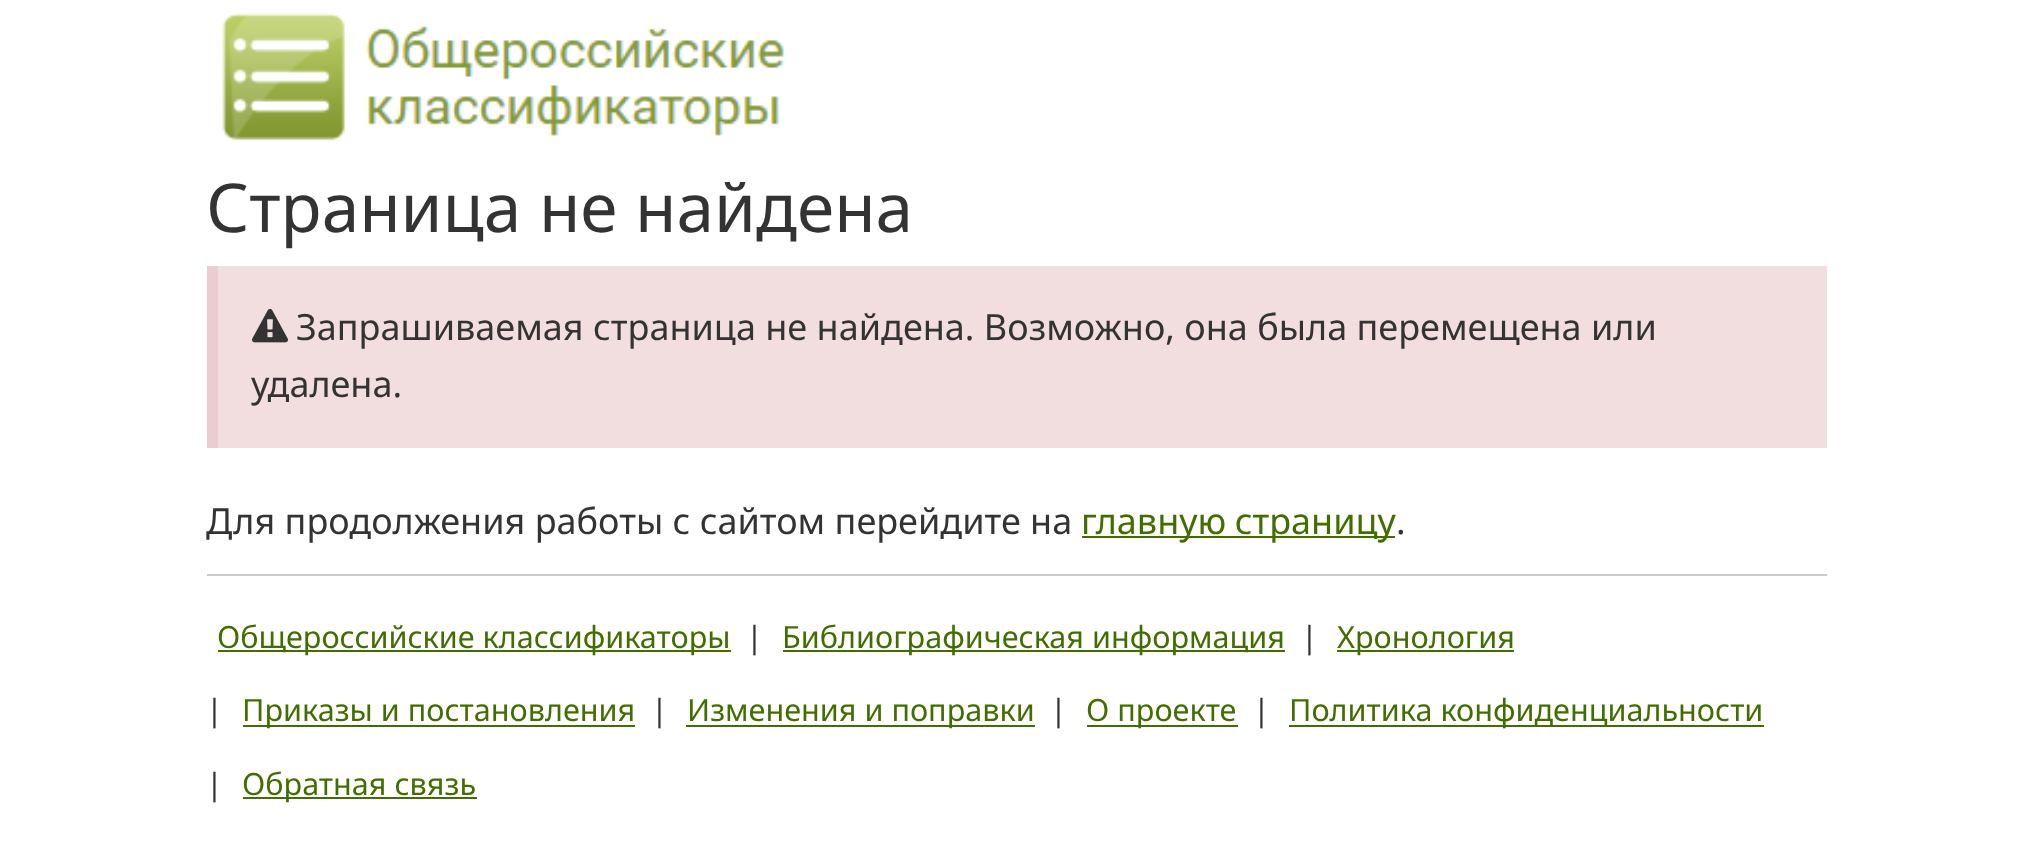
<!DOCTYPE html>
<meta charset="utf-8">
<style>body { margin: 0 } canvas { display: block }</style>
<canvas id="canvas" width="2031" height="842"></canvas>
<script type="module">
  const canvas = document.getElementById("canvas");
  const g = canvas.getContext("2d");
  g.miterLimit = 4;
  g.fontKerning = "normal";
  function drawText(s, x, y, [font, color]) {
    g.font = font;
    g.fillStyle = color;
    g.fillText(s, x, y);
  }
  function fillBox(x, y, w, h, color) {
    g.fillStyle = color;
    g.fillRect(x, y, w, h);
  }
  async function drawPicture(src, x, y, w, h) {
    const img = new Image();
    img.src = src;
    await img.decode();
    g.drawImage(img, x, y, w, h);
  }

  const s1 = ["67.5px Noto Sans", "#333333"];
  const s2 = ["36px Noto Sans", "#333333"];
  const s3 = ["36px Noto Sans", "#426E00"];
  const s4 = ["30.6px Noto Sans", "#426E00"];
  const s5 = ["30.6px Noto Sans", "#333333"];

  fillBox(0, 0, 2031, 842, "#FFFFFF");
  await drawPicture("pic1.png", 222, 13, 564, 128);
  drawText("Страница не найдена", 206, 232, s1);
  fillBox(218, 266, 1609, 182, "#F2DEDE");
  fillBox(207, 266, 11, 182, "#EBCCD1");
  await drawPicture("pic2.png", 252, 308, 36, 35);
  drawText("Запрашиваемая страница не найдена. Возможно, она была перемещена или", 296, 340, s2);
  drawText("удалена.", 251, 397, s2);
  drawText("Для продолжения работы с сайтом перейдите на", 206, 534, s2);
  fillBox(1082, 536, 313, 2, "#426E00");
  g.wordSpacing = "-1px";
  drawText("главную страницу", 1081, 534, s3);
  g.wordSpacing = "0px";
  drawText(".", 1396, 534, s2);
  fillBox(207, 574, 1620, 2, "#CCCCCC");
  fillBox(218, 650, 513, 2, "#426E00");
  drawText("Общероссийские классификаторы", 217, 648, s4);
  drawText("|", 746, 648, s5);
  fillBox(783, 650, 502, 2, "#426E00");
  drawText("Библиографическая информация", 782, 648, s4);
  drawText("|", 1301, 648, s5);
  fillBox(1337, 650, 177, 2, "#426E00");
  drawText("Хронология", 1337, 648, s4);
  drawText("|", 206, 721, s5);
  fillBox(243, 725, 392, 2, "#426E00");
  drawText("Приказы и постановления", 242, 721, s4);
  drawText("|", 651, 721, s5);
  fillBox(686, 725, 349, 2, "#426E00");
  drawText("Изменения и поправки", 687, 721, s4);
  drawText("|", 1050, 721, s5);
  fillBox(1087, 725, 151, 2, "#426E00");
  drawText("О проекте", 1086, 721, s4);
  drawText("|", 1253, 721, s5);
  fillBox(1289, 725, 475, 2, "#426E00");
  drawText("Политика конфиденциальности", 1289, 721, s4);
  drawText("|", 206, 795, s5);
  fillBox(243, 797, 234, 2, "#426E00");
  drawText("Обратная связь", 242, 795, s4);
</script>
